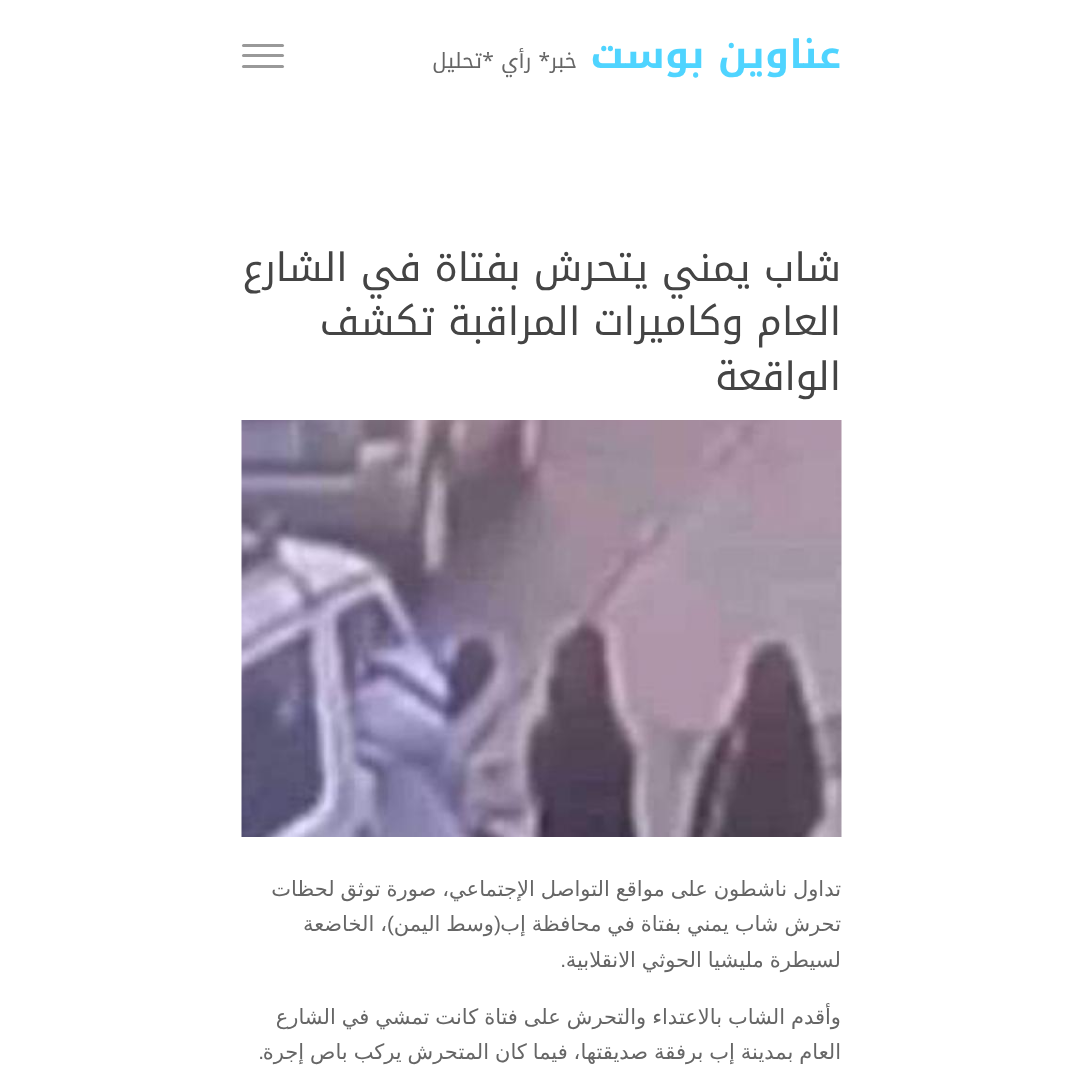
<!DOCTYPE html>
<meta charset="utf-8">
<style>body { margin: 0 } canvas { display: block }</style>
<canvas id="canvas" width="1083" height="1077"></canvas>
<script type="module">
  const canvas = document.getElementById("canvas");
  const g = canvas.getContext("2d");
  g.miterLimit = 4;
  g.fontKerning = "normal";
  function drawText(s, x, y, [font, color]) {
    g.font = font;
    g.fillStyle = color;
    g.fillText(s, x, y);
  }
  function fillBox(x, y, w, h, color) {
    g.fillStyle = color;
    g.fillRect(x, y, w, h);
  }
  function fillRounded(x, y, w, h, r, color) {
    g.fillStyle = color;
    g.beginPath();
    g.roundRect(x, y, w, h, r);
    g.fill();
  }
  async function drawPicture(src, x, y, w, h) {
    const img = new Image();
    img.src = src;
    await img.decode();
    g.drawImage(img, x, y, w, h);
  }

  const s1 = ["bold 39px Noto Kufi Arabic", "#4FD4FF"];
  const s2 = ["21px Noto Kufi Arabic", "#666666"];
  const s3 = ["39px Noto Kufi Arabic", "#444444"];
  const s4 = ["21px DejaVu Sans", "#666666"];
  const s5 = ["21px Liberation Sans", "#666666"];

  fillBox(0, 0, 1083, 1077, "#FFFFFF");
  g.direction = "rtl";
  drawText("عناوين بوست", 841, 68, s1);
  drawText("خبر* رأي *تحليل", 577, 68, s2);
  fillRounded(242, 65, 42, 3, 1.5, "#999999");
  fillRounded(242, 44, 42, 3, 1.5, "#999999");
  fillRounded(242, 54, 42, 3, 1.5, "#999999");
  drawText("شاب يمني يتحرش بفتاة في الشارع", 841, 281, s3);
  drawText("العام وكاميرات المراقبة تكشف", 841, 335, s3);
  drawText("الواقعة", 841, 390, s3);
  await drawPicture("pic1.png", 241, 420, 601, 417);
  g.wordSpacing = "-0.75px";
  drawText("تداول ناشطون على مواقع التواصل الإجتماعي، صورة توثق لحظات", 841, 896, s4);
  drawText("تحرش شاب يمني بفتاة في محافظة إب", 841, 931, s4);
  g.wordSpacing = "0px";
  drawText("(", 501, 931, s5);
  g.wordSpacing = "-0.75px";
  drawText("وسط اليمن", 494, 931, s4);
  g.wordSpacing = "0px";
  drawText(")", 394, 931, s5);
  g.wordSpacing = "-0.75px";
  drawText("، الخاضعة", 387, 931, s4);
  drawText("لسيطرة مليشيا الحوثي الانقلابية", 841, 967, s4);
  g.wordSpacing = "0px";
  drawText(".", 566, 967, s5);
  g.wordSpacing = "-0.75px";
  drawText("وأقدم الشاب بالاعتداء والتحرش على فتاة كانت تمشي في الشارع", 841, 1024, s4);
  drawText("العام بمدينة إب برفقة صديقتها، فيما كان المتحرش يركب باص إجرة", 841, 1059, s4);
  g.wordSpacing = "0px";
  drawText(".", 264, 1059, s5);
</script>
